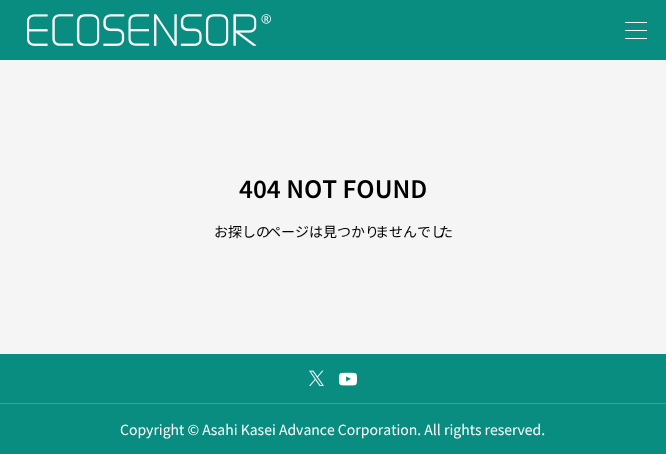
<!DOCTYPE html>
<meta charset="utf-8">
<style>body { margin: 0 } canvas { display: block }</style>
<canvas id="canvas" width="666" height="454"></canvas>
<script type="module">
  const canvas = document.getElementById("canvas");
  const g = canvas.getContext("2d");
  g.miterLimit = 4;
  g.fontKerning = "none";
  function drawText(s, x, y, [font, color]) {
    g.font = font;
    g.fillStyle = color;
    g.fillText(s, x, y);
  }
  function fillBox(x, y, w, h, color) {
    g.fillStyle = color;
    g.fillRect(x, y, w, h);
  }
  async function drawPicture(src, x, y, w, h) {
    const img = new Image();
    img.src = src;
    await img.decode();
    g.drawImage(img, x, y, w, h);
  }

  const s1 = ["600 24px Noto Sans JP", "#000000"];
  const s2 = ["14px Noto Sans JP", "#000000"];
  const s3 = ["14px Noto Sans JP", "#FFFFFF"];

  fillBox(0, 0, 666, 454, "#0A8D81");
  await drawPicture("pic1.png", 27, 14, 244, 32);
  fillBox(625, 22, 22, 1, "#FFFFFF");
  fillBox(625, 30, 22, 1, "#FFFFFF");
  fillBox(625, 38, 22, 1, "#FFFFFF");
  fillBox(0, 60, 666, 294, "#F5F5F5");
  drawText("404 NOT FOUND", 239, 198, s1);
  drawText("お探しの", 214, 237, s2);
  drawText("ページは見つかり", 267, 237, s2);
  drawText("ませんでし", 375, 237, s2);
  drawText("た", 439, 237, s2);
  fillBox(0, 403, 666, 1, "#3BA49A");
  await drawPicture("pic2.png", 309, 370, 15, 16);
  await drawPicture("pic3.png", 339, 372, 18, 14);
  drawText("Copyright © Asahi Kasei Advance Corporation. All rights reserved.", 120, 435, s3);
</script>
